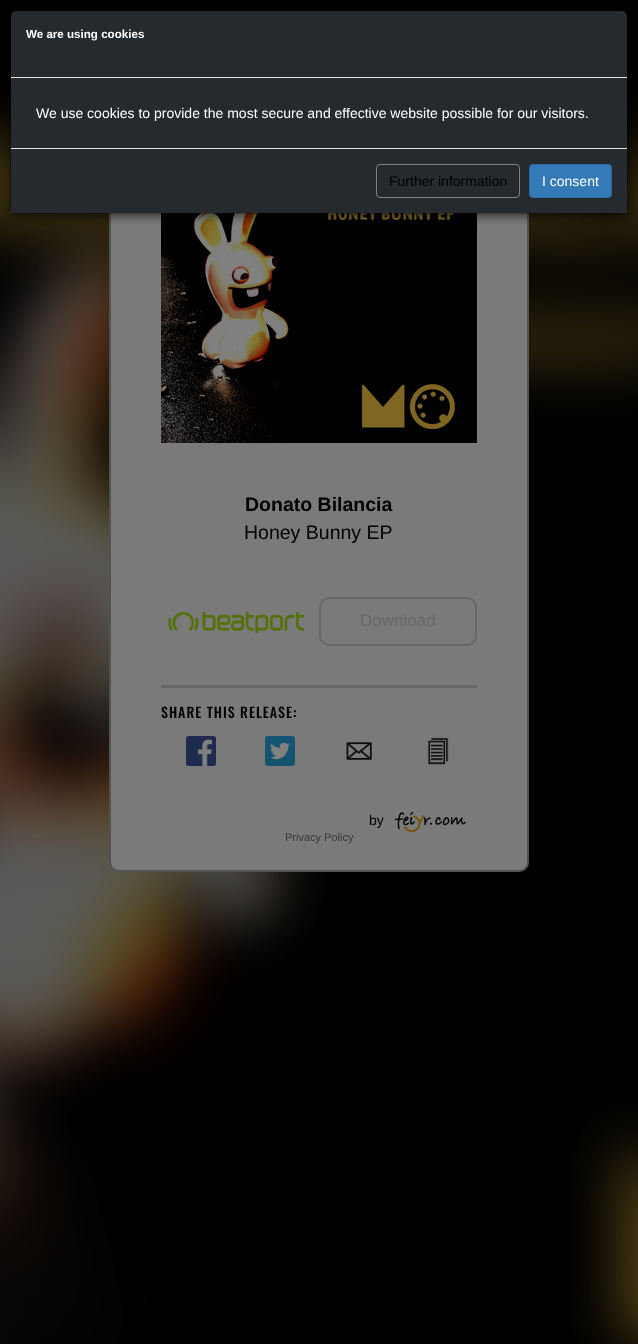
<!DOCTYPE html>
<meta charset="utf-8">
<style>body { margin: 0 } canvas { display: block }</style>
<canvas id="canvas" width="638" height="1344"></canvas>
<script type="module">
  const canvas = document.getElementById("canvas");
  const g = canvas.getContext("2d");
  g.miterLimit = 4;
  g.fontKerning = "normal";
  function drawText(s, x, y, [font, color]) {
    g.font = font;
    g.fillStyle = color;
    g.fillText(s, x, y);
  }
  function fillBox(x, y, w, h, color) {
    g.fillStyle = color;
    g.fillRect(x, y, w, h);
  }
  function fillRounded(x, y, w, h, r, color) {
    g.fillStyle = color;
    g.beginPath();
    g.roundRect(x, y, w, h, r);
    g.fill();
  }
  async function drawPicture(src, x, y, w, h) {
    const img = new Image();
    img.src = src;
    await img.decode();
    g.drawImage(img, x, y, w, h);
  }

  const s1 = ["bold 11.6px Liberation Sans", "#FFFFFF"];
  const s2 = ["14px Liberation Sans", "#FFFFFF"];
  const s3 = ["14px Liberation Sans", "#000000"];
  const s4 = ["bold 19.5px Liberation Sans", "#000000"];
  const s5 = ["19.5px Liberation Sans", "#000000"];
  const s6 = ["17px Liberation Sans", "#676767"];
  const s7 = ["500 14px Oswald", "#000000"];
  const s8 = ["11px Liberation Sans", "#373737"];

  fillBox(0, 0, 638, 1344, "#000000");
  await drawPicture("pic1.png", 0, 79, 638, 1265);
  fillRounded(109, 100, 420, 772, 10, "#7A7A7A");
  g.beginPath();
  g.roundRect(110, 101, 418, 770, 9);
  g.strokeStyle = "rgba(0, 0, 0, 0.32)";
  g.lineWidth = 2;
  g.stroke();
  await drawPicture("pic2.png", 161, 213, 316, 230);
  g.fillStyle = "rgba(0, 0, 0, 0.5)";
  g.filter = "blur(4.5px)";
  g.beginPath();
  g.roundRect(10, 13, 618, 204, 6);
  g.fill();
  g.filter = "none";
  fillRounded(11, 11, 616, 202, 5, "#252A2E");
  g.beginPath();
  g.roundRect(10.5, 10.5, 617, 203, 5.5);
  g.strokeStyle = "rgba(0, 0, 0, 0.2)";
  g.lineWidth = 1;
  g.stroke();
  fillBox(11, 77, 616, 1, "#E5E5E5");
  drawText("We are using cookies", 26, 38, s1);
  drawText("We use cookies to provide the most secure and effective website possible for our visitors.", 36, 118, s2);
  fillBox(11, 208, 616, 5, "#252A2E");
  fillBox(11, 148, 616, 1, "#E5E5E5");
  g.beginPath();
  g.roundRect(376.5, 164.5, 143, 33, 3.5);
  g.strokeStyle = "#808080";
  g.stroke();
  drawText("Further information", 389, 186, s3);
  g.fillStyle = "#337AB7";
  g.beginPath();
  g.roundRect(529.5, 164.5, 82, 33, 3.5);
  g.fill();
  g.strokeStyle = "#2E6DA4";
  g.stroke();
  drawText("I consent", 542, 186, s2);
  drawText("Donato Bilancia", 245, 511, s4);
  drawText("Honey Bunny EP", 244, 539, s5);
  await drawPicture("pic3.png", 168, 612, 136, 21);
  g.beginPath();
  g.roundRect(320, 598, 156, 47, 9);
  g.strokeStyle = "#676767";
  g.lineWidth = 2;
  g.stroke();
  drawText("Download", 360, 626, s6);
  fillBox(161, 685, 316, 3, "#676767");
  g.letterSpacing = "1px";
  drawText("SHARE THIS RELEASE:", 161, 718, s7);
  await drawPicture("pic4.png", 186, 736, 30, 30);
  await drawPicture("pic5.png", 265, 736, 30, 30);
  await drawPicture("pic6.png", 346, 742, 26, 18);
  await drawPicture("pic7.png", 427, 737, 22, 28);
  g.letterSpacing = "0px";
  drawText("by", 369, 825, s3);
  await drawPicture("pic8.png", 395, 812, 71, 20);
  drawText("Privacy Policy", 285, 841, s8);
</script>
